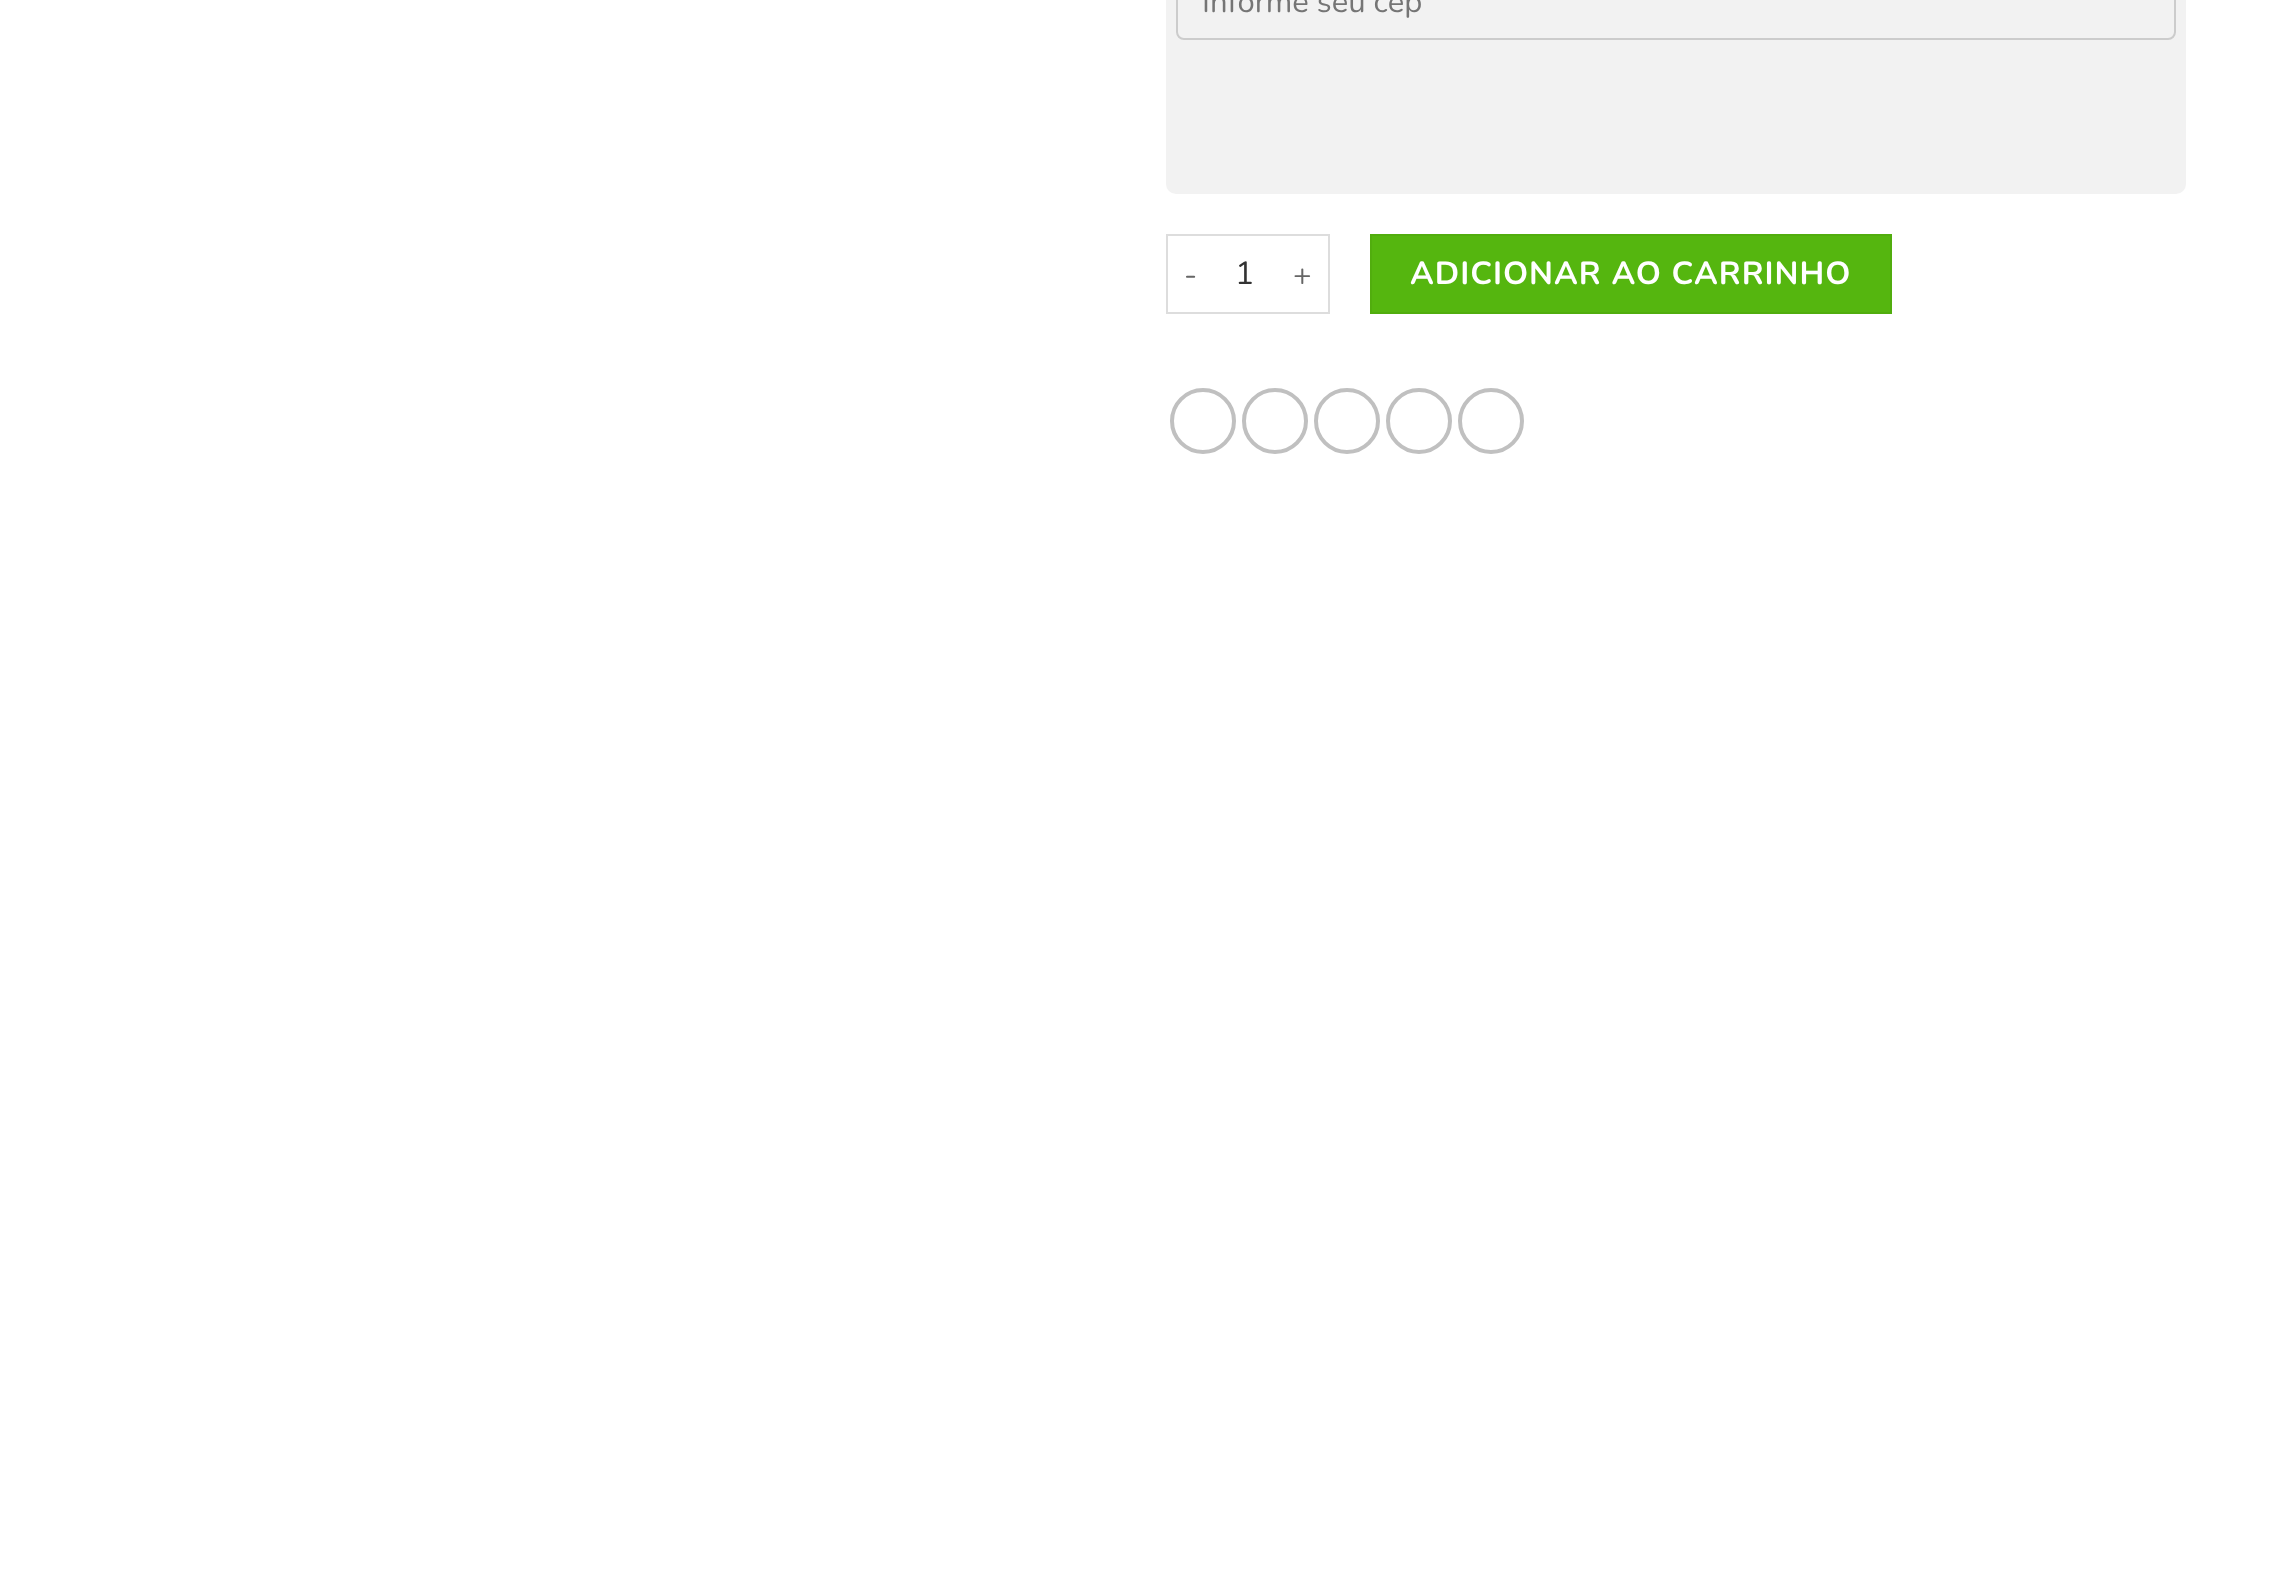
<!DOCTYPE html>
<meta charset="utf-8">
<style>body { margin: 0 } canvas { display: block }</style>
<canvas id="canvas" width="2271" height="1569"></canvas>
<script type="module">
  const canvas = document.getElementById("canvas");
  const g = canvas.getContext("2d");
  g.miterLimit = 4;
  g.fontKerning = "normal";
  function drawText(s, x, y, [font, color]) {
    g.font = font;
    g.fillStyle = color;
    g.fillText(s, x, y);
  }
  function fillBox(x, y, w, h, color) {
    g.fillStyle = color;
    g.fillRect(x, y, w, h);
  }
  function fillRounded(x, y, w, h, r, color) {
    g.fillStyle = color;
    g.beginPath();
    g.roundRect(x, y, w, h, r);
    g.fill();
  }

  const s1 = ["31px Nunito", "#757575"];
  const s2 = ["31px Nunito", "#666666"];
  const s3 = ["32px Nunito", "#333333"];
  const s4 = ["bold 32px Nunito", "#FFFFFF"];

  fillBox(0, 0, 2271, 1569, "#FFFFFF");
  fillRounded(1166, -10, 1020, 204, 10, "#F2F2F2");
  g.beginPath();
  g.roundRect(1177, -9, 998, 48, 7);
  g.strokeStyle = "#CCCCCC";
  g.lineWidth = 2;
  g.stroke();
  drawText("Informe seu cep", 1202, 12, s1);
  fillBox(1166, 234, 164, 2, "#DDDDDD");
  fillBox(1166, 312, 112, 2, "#DDDDDD");
  fillBox(1166, 234, 2, 80, "#DDDDDD");
  g.letterSpacing = "1px";
  drawText("-", 1184, 285, s2);
  g.letterSpacing = "0px";
  drawText("1", 1235, 284, s3);
  fillBox(1328, 234, 2, 80, "#DDDDDD");
  fillBox(1278, 312, 52, 2, "#DDDDDD");
  g.letterSpacing = "1px";
  drawText("+", 1293, 285, s2);
  g.fillStyle = "#55B60F";
  g.beginPath();
  g.rect(1371, 235, 520, 78);
  g.fill();
  g.strokeStyle = "#51AD0E";
  g.stroke();
  drawText("ADICIONAR AO CARRINHO", 1410, 284, s4);
  g.beginPath();
  g.arc(1203, 421, 31, 0, Math.PI * 2);
  g.strokeStyle = "#C0C0C0";
  g.lineWidth = 4;
  g.stroke();
  g.beginPath();
  g.arc(1275, 421, 31, 0, Math.PI * 2);
  g.stroke();
  g.beginPath();
  g.arc(1347, 421, 31, 0, Math.PI * 2);
  g.stroke();
  g.beginPath();
  g.arc(1419, 421, 31, 0, Math.PI * 2);
  g.stroke();
  g.beginPath();
  g.arc(1491, 421, 31, 0, Math.PI * 2);
  g.stroke();
</script>
